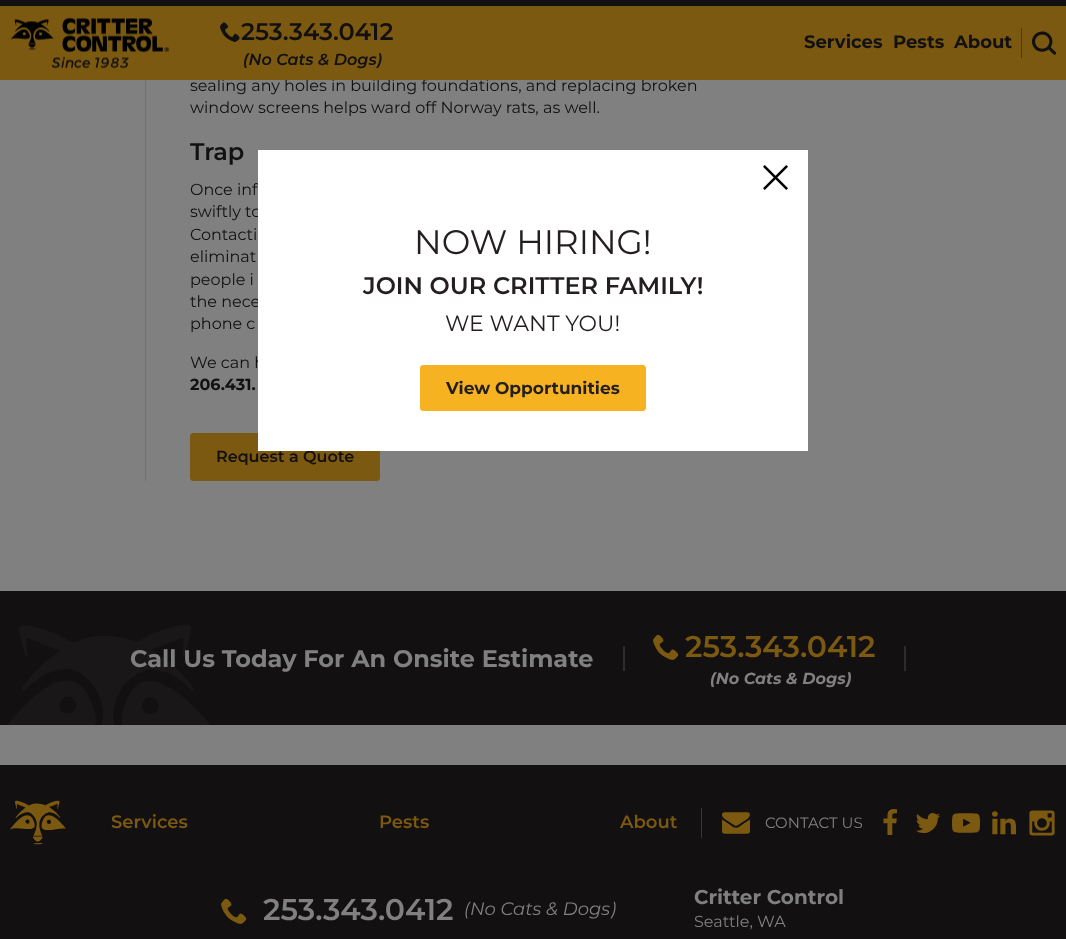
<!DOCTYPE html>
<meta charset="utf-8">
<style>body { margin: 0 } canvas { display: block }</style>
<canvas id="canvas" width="1066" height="939"></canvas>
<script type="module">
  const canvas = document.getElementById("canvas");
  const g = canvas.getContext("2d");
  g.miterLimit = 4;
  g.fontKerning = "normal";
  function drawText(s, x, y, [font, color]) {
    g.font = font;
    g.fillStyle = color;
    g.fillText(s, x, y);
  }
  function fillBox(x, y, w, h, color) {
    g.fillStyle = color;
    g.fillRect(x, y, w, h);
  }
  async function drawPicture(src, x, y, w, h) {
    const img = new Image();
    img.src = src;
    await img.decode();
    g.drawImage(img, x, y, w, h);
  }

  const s1 = ["16px Montserrat", "#121010"];
  const s2 = ["600 24px Montserrat", "#121010"];
  const s3 = ["italic 600 16px Montserrat", "#121010"];
  const s4 = ["bold 18px Montserrat", "#121010"];
  const s5 = ["bold 16px Montserrat", "#121010"];
  const s6 = ["600 16px Montserrat", "#121010"];
  const s7 = ["bold 24px Montserrat", "#808080"];
  const s8 = ["600 30px Montserrat", "#7B5911"];
  const s9 = ["italic bold 16px Montserrat", "#808080"];
  const s10 = ["34px Montserrat", "#231F20"];
  const s11 = ["600 24px Montserrat", "#231F20"];
  const s12 = ["22px Montserrat", "#231F20"];
  const s13 = ["bold 17px Montserrat", "#231F20"];
  const s14 = ["600 18px Montserrat", "#7B5911"];
  const s15 = ["15px Montserrat", "#808080"];
  const s16 = ["600 30px Montserrat", "#808080"];
  const s17 = ["italic 18px Montserrat", "#808080"];
  const s18 = ["bold 20px Montserrat", "#808080"];
  const s19 = ["16px Montserrat", "#808080"];

  fillBox(0, 0, 1066, 939, "#808080");
  drawText("sealing any holes in building foundations, and replacing broken", 190, 91, s1);
  fillBox(0, 6, 1066, 74, "#7B5911");
  fillBox(0, 0, 1066, 6, "#121010");
  await drawPicture("pic1.png", 11, 17, 159, 52);
  await drawPicture("pic2.png", 220, 22, 20, 20);
  drawText("253.343.0412", 241, 40, s2);
  drawText("(No Cats & Dogs)", 243, 65, s3);
  drawText("Services", 804, 48, s4);
  drawText("Pests", 893, 48, s4);
  drawText("About", 954, 48, s4);
  fillBox(1021, 28, 1, 30, "#533B06");
  await drawPicture("pic3.png", 1032, 31, 24, 24);
  fillBox(145, 80, 1, 401, "#717171");
  drawText("window screens helps ward off Norway rats, as well.", 190, 113, s1);
  drawText("Trap", 190, 160, s2);
  drawText("Once inf", 190, 195, s1);
  drawText("swiftly to", 190, 217, s1);
  drawText("Contacti", 190, 240, s1);
  drawText("eliminat", 190, 262, s1);
  drawText("people i", 190, 285, s1);
  drawText("the nece", 190, 307, s1);
  drawText("phone c", 190, 329, s1);
  drawText("We can h", 190, 368, s1);
  drawText("206.431.", 190, 390, s5);
  g.fillStyle = "#7B5911";
  g.beginPath();
  g.roundRect(190.5, 433.5, 189, 47, 2.5);
  g.fill();
  g.strokeStyle = "#7B5911";
  g.stroke();
  drawText("Request a Quote", 216, 462, s6);
  fillBox(0, 591, 1066, 134, "#121010");
  await drawPicture("pic4.png", 8, 625, 202, 100);
  drawText("Call Us Today For An Onsite Estimate", 130, 667, s7);
  fillBox(623, 646, 2, 25, "#2D2B2C");
  await drawPicture("pic5.png", 653, 634, 26, 26);
  drawText("253.343.0412", 685, 657, s8);
  drawText("(No Cats & Dogs)", 710, 684, s9);
  fillBox(904, 646, 2, 25, "#2D2B2C");
  fillBox(258, 150, 550, 301, "#FFFFFF");
  await drawPicture("pic6.png", 763, 165, 25, 25);
  drawText("NOW HIRING!", 414, 254, s10);
  drawText("JOIN OUR CRITTER FAMILY!", 363, 294, s11);
  drawText("WE WANT YOU!", 445, 331, s12);
  g.fillStyle = "#F6B221";
  g.beginPath();
  g.roundRect(420.5, 365.5, 225, 45, 2.5);
  g.fill();
  g.strokeStyle = "#F6B221";
  g.stroke();
  drawText("View Opportunities", 446, 394, s13);
  fillBox(0, 765, 1066, 174, "#121010");
  await drawPicture("pic7.png", 10, 800, 56, 45);
  drawText("Services", 111, 828, s14);
  drawText("Pests", 379, 828, s14);
  drawText("About", 620, 828, s14);
  fillBox(701, 808, 1, 30, "#393637");
  await drawPicture("pic8.png", 722, 812, 28, 22);
  drawText("CONTACT US", 765, 828, s15);
  await drawPicture("pic9.png", 883, 809, 14, 26);
  await drawPicture("pic10.png", 916, 813, 25, 20);
  await drawPicture("pic11.png", 952, 813, 28, 20);
  await drawPicture("pic12.png", 992, 811, 24, 24);
  await drawPicture("pic13.png", 1029, 810, 26, 26);
  await drawPicture("pic14.png", 221, 898, 26, 26);
  drawText("253.343.0412", 263, 920, s16);
  drawText("(No Cats & Dogs)", 464, 915, s17);
  drawText("Critter Control", 694, 904, s18);
  drawText("Seattle, WA", 694, 927, s19);
</script>
